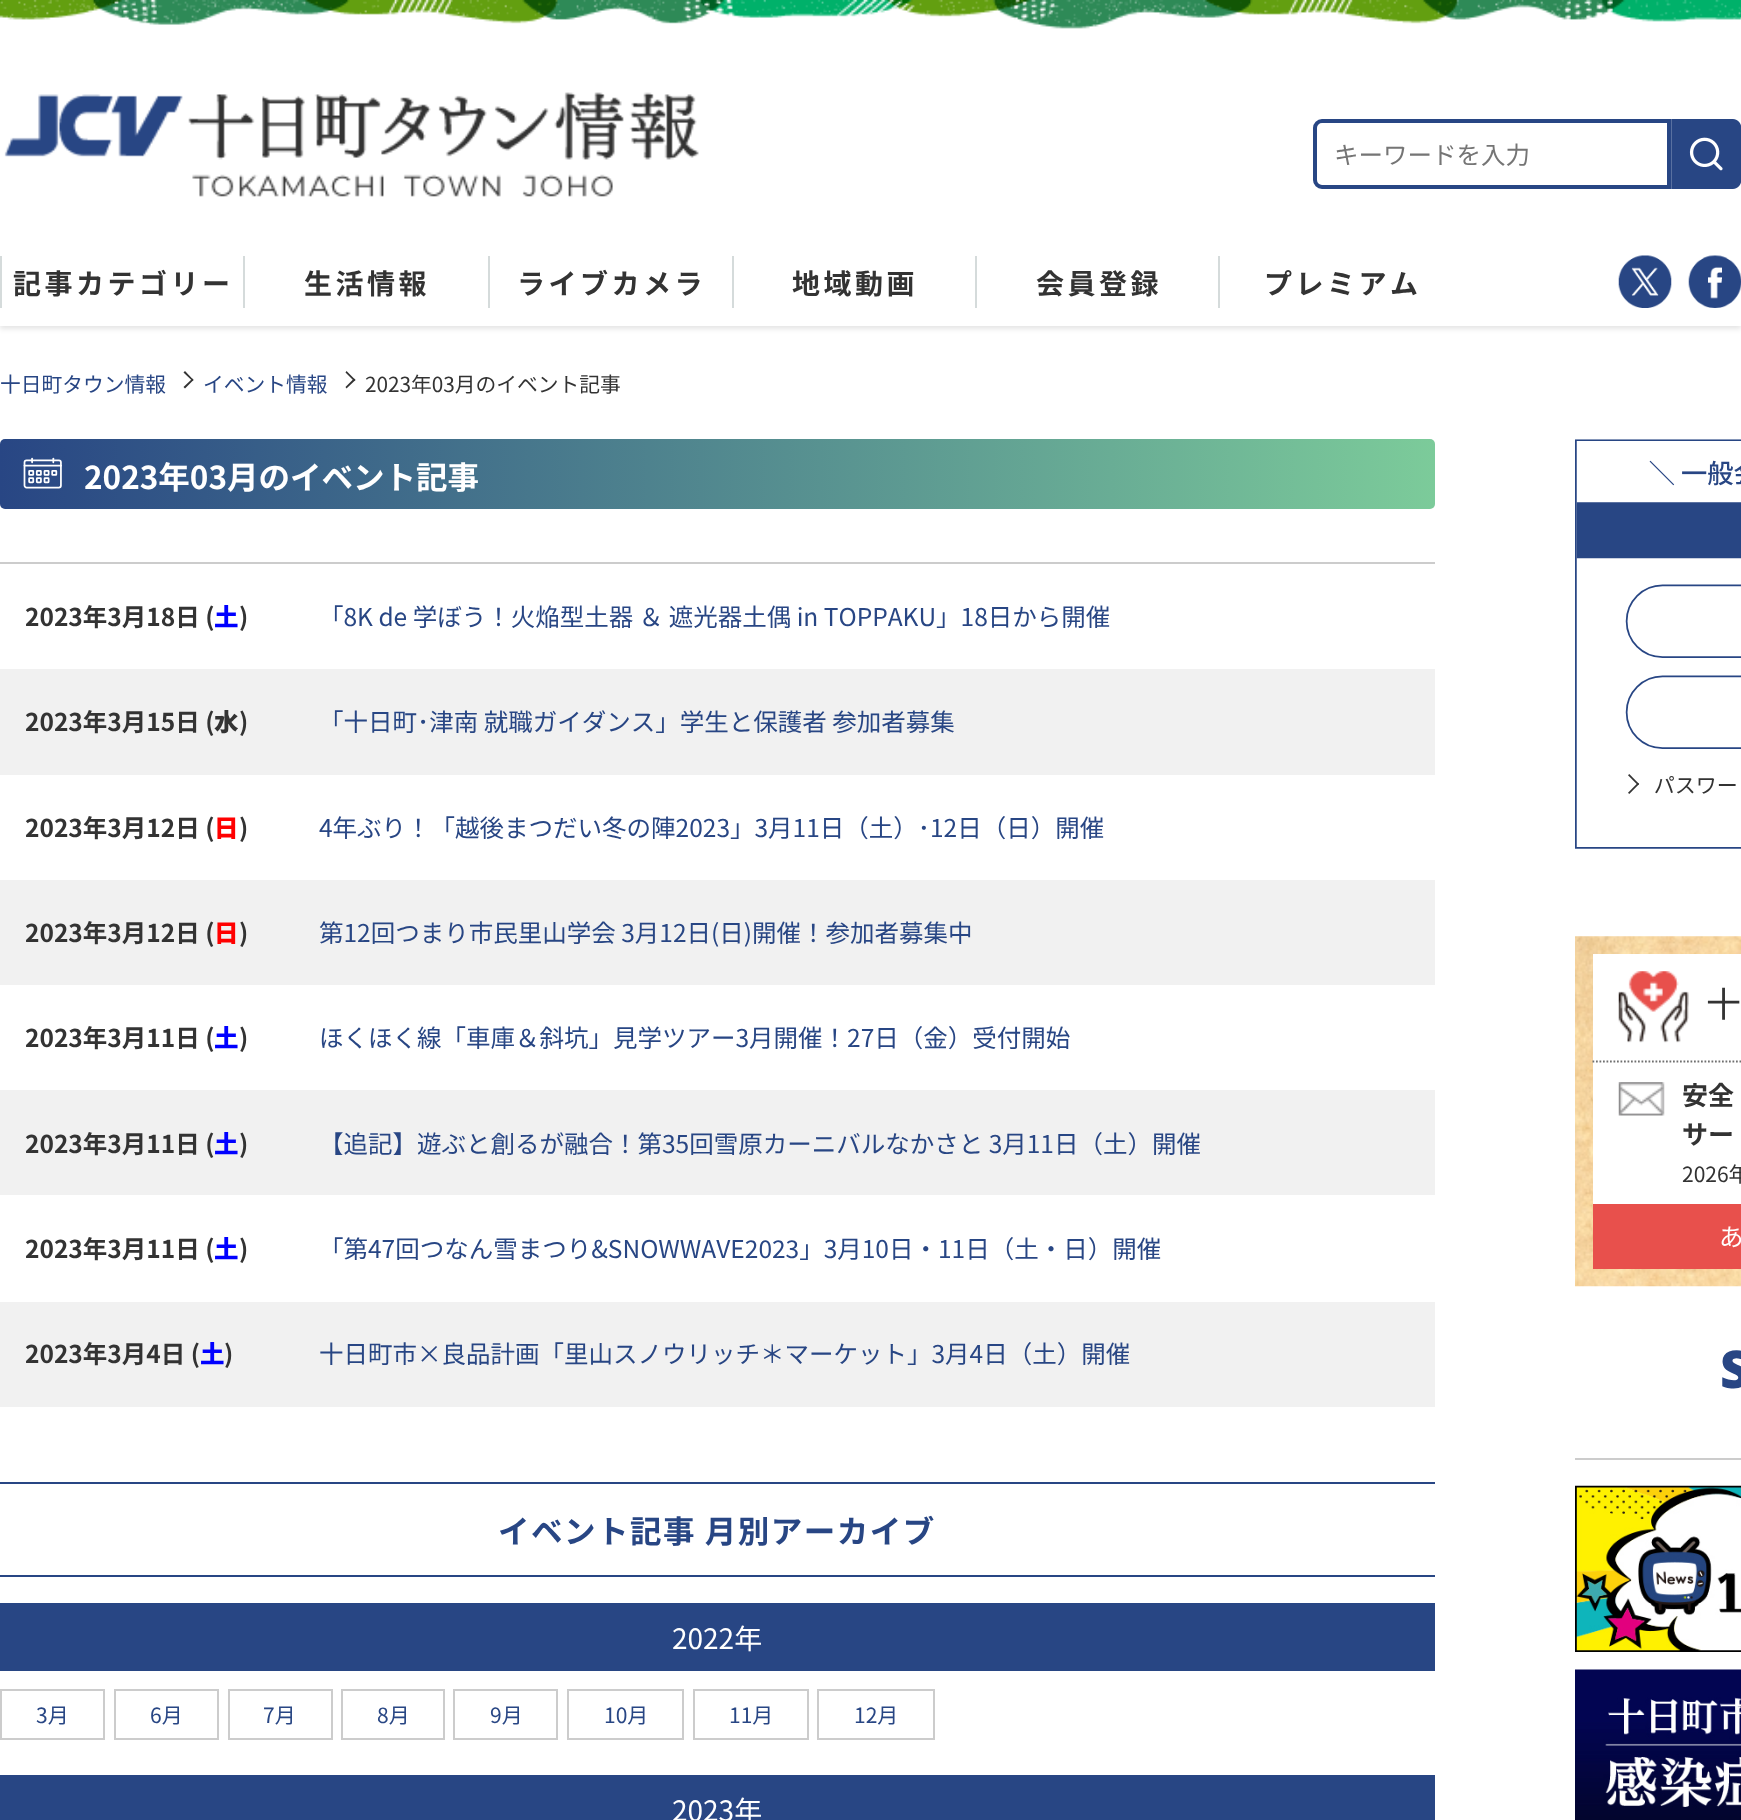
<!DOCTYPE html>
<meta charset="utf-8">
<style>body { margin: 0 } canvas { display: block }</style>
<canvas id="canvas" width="1741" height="1820"></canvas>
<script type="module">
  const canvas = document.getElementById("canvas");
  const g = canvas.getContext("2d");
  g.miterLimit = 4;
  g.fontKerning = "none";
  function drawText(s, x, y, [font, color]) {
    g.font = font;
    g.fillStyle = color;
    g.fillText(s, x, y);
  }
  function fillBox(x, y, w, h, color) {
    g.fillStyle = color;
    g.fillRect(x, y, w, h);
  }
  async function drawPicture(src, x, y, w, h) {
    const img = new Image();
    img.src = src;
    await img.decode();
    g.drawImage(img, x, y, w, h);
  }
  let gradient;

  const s1 = ["24.5px Noto Sans JP", "#757575"];
  const s2 = ["bold 28px Noto Sans JP", "#333333"];
  const s3 = ["20.75px Noto Sans JP", "#284684"];
  const s4 = ["20.75px Noto Sans JP", "#333333"];
  const s5 = ["bold 31.5px Noto Sans JP", "#FFFFFF"];
  const s6 = ["bold 24.5px Noto Sans JP", "#333333"];
  const s7 = ["900 24.5px Noto Sans JP", "#0000FF"];
  const s8 = ["24.5px Noto Sans JP", "#284684"];
  const s9 = ["900 24.5px Noto Sans JP", "#333333"];
  const s10 = ["900 24.5px Noto Sans JP", "#FF0000"];
  const s11 = ["bold 31.5px Noto Sans JP", "#284684"];
  const s12 = ["28px Noto Sans JP", "#FFFFFF"];
  const s13 = ["21px Noto Sans JP", "#284684"];
  const s14 = ["35px Noto Sans JP", "#333333"];
  const s15 = ["bold 26px Noto Sans JP", "#333333"];
  const s16 = ["21px Noto Sans JP", "#333333"];
  const s17 = ["24.5px Noto Sans JP", "#FFFFFF"];
  const s18 = ["900 52px Noto Sans", "#284684"];

  fillBox(0, 0, 1741, 1820, "#FFFFFF");
  await drawPicture("pic1.png", 0, 0, 1741, 29);
  g.save();
  g.beginPath();
  g.moveTo(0, 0);
  g.lineTo(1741, 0);
  g.lineTo(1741, 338);
  g.lineTo(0, 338);
  g.closePath();
  g.moveTo(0, 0);
  g.lineTo(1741, 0);
  g.lineTo(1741, 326);
  g.lineTo(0, 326);
  g.closePath();
  g.clip("evenodd");
  g.fillStyle = "rgba(0, 0, 0, 0.1)";
  g.filter = "blur(2.5px)";
  g.beginPath();
  g.rect(0, 4, 1741, 325);
  g.fill();
  g.filter = "none";
  g.restore();
  await drawPicture("pic2.png", 4, 92, 695, 105);
  g.beginPath();
  g.roundRect(1315, 121, 354, 66, [7, 0, 0, 7]);
  g.strokeStyle = "#284684";
  g.lineWidth = 4;
  g.stroke();
  drawText("キーワードを入力", 1334, 164, s1);
  await drawPicture("pic3.png", 1671, 119, 70, 70);
  fillBox(0, 256, 2, 52, "#D5DBDB");
  g.letterSpacing = "3.5px";
  drawText("記事カテゴリー", 13, 294, s2);
  fillBox(243, 256, 2, 52, "#D5DBDB");
  drawText("生活情報", 304, 294, s2);
  fillBox(488, 256, 2, 52, "#D5DBDB");
  drawText("ライブカメラ", 517, 294, s2);
  fillBox(732, 256, 2, 52, "#D5DBDB");
  drawText("地域動画", 792, 294, s2);
  fillBox(975, 256, 2, 52, "#D5DBDB");
  drawText("会員登録", 1036, 294, s2);
  fillBox(1218, 256, 2, 52, "#D5DBDB");
  drawText("プレミアム", 1264, 294, s2);
  await drawPicture("pic4.png", 1618, 255, 54, 53);
  await drawPicture("pic5.png", 1688, 255, 53, 53);
  g.letterSpacing = "0px";
  drawText("十日町タウン情報", 0, 392, s3);
  g.fillStyle = "#333333";
  g.beginPath();
  g.moveTo(185, 371);
  g.lineTo(193.5, 380);
  g.lineTo(192.5, 381);
  g.lineTo(183.5, 372.5);
  g.closePath();
  g.fill();
  g.beginPath();
  g.moveTo(192.5, 378.5);
  g.lineTo(193.5, 380);
  g.lineTo(185, 388.5);
  g.lineTo(183.5, 387);
  g.closePath();
  g.fill();
  drawText("イベント情報", 203, 392, s3);
  g.fillStyle = "#333333";
  g.beginPath();
  g.moveTo(346.5, 371);
  g.lineTo(355.5, 380);
  g.lineTo(354, 381);
  g.lineTo(345.5, 372.5);
  g.closePath();
  g.fill();
  g.beginPath();
  g.moveTo(354, 378.5);
  g.lineTo(355.5, 380);
  g.lineTo(346.5, 388.5);
  g.lineTo(345.5, 387);
  g.closePath();
  g.fill();
  drawText("2023年03月のイベント記事", 365, 392, s4);
  gradient = g.createLinearGradient(0, 474, 1435, 474);
  gradient.addColorStop(0, "#284684");
  gradient.addColorStop(1, "#7CCB9A");
  g.fillStyle = gradient;
  g.beginPath();
  g.roundRect(0, 439, 1435, 70, 5);
  g.fill();
  await drawPicture("pic6.png", 23, 457, 39, 32);
  drawText("2023年03月のイベント記事", 84, 489, s5);
  fillBox(0, 562, 1435, 2, "#CCCCCC");
  drawText("2023年3月18日 (", 25, 626, s6);
  drawText("土", 214, 626, s7);
  drawText(")", 239, 626, s6);
  drawText("「8K de 学ぼう！火焔型土器 ＆ 遮光器土偶 in TOPPAKU」18日から開催", 319, 626, s8);
  fillBox(0, 669, 1435, 106, "#F1F1F1");
  drawText("2023年3月15日 (", 25, 731, s6);
  drawText("水", 214, 731, s9);
  drawText(")", 239, 731, s6);
  drawText("「十日町･津南 就職ガイダンス」学生と保護者 参加者募集", 319, 731, s8);
  drawText("2023年3月12日 (", 25, 837, s6);
  drawText("日", 214, 837, s10);
  drawText(")", 239, 837, s6);
  drawText("4年ぶり！「越後まつだい冬の陣2023」3月11日（土）･12日（日）開催", 319, 837, s8);
  fillBox(0, 880, 1435, 105, "#F1F1F1");
  drawText("2023年3月12日 (", 25, 942, s6);
  drawText("日", 214, 942, s10);
  drawText(")", 239, 942, s6);
  drawText("第12回つまり市民里山学会 3月12日(日)開催！参加者募集中", 319, 942, s8);
  drawText("2023年3月11日 (", 25, 1047, s6);
  drawText("土", 214, 1047, s7);
  drawText(")", 239, 1047, s6);
  drawText("ほくほく線「車庫＆斜坑」見学ツアー3月開催！27日（金）受付開始", 319, 1047, s8);
  fillBox(0, 1090, 1435, 105, "#F1F1F1");
  drawText("2023年3月11日 (", 25, 1153, s6);
  drawText("土", 214, 1153, s7);
  drawText(")", 239, 1153, s6);
  drawText("【追記】遊ぶと創るが融合！第35回雪原カーニバルなかさと 3月11日（土）開催", 319, 1153, s8);
  drawText("2023年3月11日 (", 25, 1258, s6);
  drawText("土", 214, 1258, s7);
  drawText(")", 239, 1258, s6);
  drawText("「第47回つなん雪まつり&SNOWWAVE2023」3月10日・11日（土・日）開催", 319, 1258, s8);
  fillBox(0, 1302, 1435, 105, "#F1F1F1");
  drawText("2023年3月4日 (", 25, 1363, s6);
  drawText("土", 200, 1363, s7);
  drawText(")", 224, 1363, s6);
  drawText("十日町市×良品計画「里山スノウリッチ＊マーケット」3月4日（土）開催", 319, 1363, s8);
  fillBox(0, 1482, 1435, 2, "#284684");
  fillBox(0, 1575, 1435, 2, "#284684");
  g.letterSpacing = "1.5px";
  drawText("イベント記事 月別アーカイブ", 498, 1543, s11);
  fillBox(0, 1603, 1435, 68, "#284684");
  g.letterSpacing = "0px";
  drawText("2022年", 672, 1649, s12);
  g.strokeStyle = "#CCCCCC";
  g.lineWidth = 2;
  g.strokeRect(1, 1690, 103, 49);
  drawText("3月", 36, 1723, s13);
  g.strokeRect(115, 1690, 103, 49);
  drawText("6月", 150, 1723, s13);
  g.strokeRect(229, 1690, 103, 49);
  drawText("7月", 263, 1723, s13);
  g.strokeRect(342, 1690, 102, 49);
  drawText("8月", 377, 1723, s13);
  g.strokeRect(454, 1690, 103, 49);
  drawText("9月", 490, 1723, s13);
  g.strokeRect(568, 1690, 115, 49);
  drawText("10月", 604, 1723, s13);
  g.strokeRect(694, 1690, 114, 49);
  drawText("11月", 729, 1723, s13);
  g.strokeRect(818, 1690, 116, 49);
  drawText("12月", 854, 1723, s13);
  fillBox(0, 1775, 1435, 45, "#284684");
  drawText("2023年", 672, 1821, s12);
  await drawPicture("pic7.png", 1575, 439, 166, 410);
  await drawPicture("pic8.png", 1575, 936, 166, 351);
  fillBox(1593, 954, 148, 250, "#FFFFFF");
  await drawPicture("pic9.png", 1618, 971, 71, 72);
  drawText("十", 1706, 1017, s14);
  g.beginPath();
  g.moveTo(1592.5, 1061.5);
  g.lineTo(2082.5, 1061.5);
  g.strokeStyle = "#707070";
  g.lineWidth = 1.8;
  g.setLineDash([1.75, 1.75]);
  g.stroke();
  await drawPicture("pic10.png", 1618, 1082, 47, 34);
  drawText("安全", 1682, 1105, s15);
  drawText("サー", 1682, 1144, s15);
  drawText("2026年", 1682, 1182, s16);
  fillBox(1593, 1204, 148, 65, "#E8504C");
  drawText("あ", 1719, 1246, s17);
  drawText("S", 1720, 1388, s18);
  fillBox(1575, 1458, 166, 2, "#CCCCCC");
  await drawPicture("pic11.png", 1575, 1485, 166, 167);
  await drawPicture("pic12.png", 1575, 1669, 166, 151);
</script>
